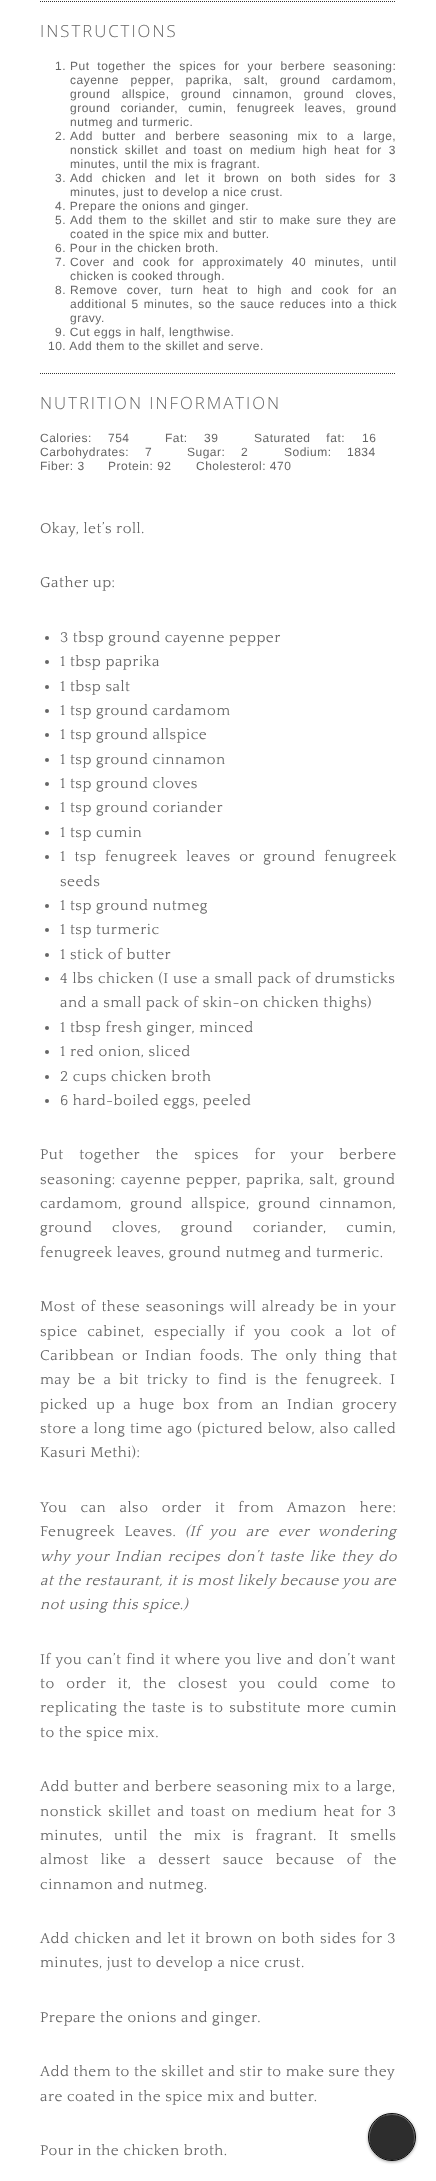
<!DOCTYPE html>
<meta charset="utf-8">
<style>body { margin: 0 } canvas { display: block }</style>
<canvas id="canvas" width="436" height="2181"></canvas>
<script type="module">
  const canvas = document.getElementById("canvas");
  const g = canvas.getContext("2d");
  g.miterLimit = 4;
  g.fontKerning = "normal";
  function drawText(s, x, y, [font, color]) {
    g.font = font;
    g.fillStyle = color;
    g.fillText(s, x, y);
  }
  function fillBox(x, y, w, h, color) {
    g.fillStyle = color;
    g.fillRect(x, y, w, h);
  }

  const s1 = ["300 16.75px Open Sans", "#666666"];
  const s2 = ["12px Liberation Sans", "#666666"];
  const s3 = ["15px Quattrocento", "#666666"];
  const s4 = ["italic 15px Quattrocento", "#666666"];

  fillBox(0, 0, 436, 2181, "#FFFFFF");
  g.beginPath();
  g.moveTo(40, 1.5);
  g.lineTo(396, 1.5);
  g.strokeStyle = "#333333";
  g.setLineDash([1, 1]);
  g.stroke();
  g.letterSpacing = "2px";
  drawText("INSTRUCTIONS", 40, 37, s1);
  g.letterSpacing = "0.5px";
  drawText("1.", 55, 70, s2);
  g.wordSpacing = "4px";
  drawText("Put together the spices for your berbere seasoning:", 70, 70, s2);
  g.wordSpacing = "7.75px";
  drawText("cayenne pepper, paprika, salt, ground cardamom,", 70, 84, s2);
  g.wordSpacing = "7.5px";
  drawText("ground allspice, ground cinnamon, ground cloves,", 70, 98, s2);
  g.wordSpacing = "6.25px";
  drawText("ground coriander, cumin, fenugreek leaves, ground", 70, 112, s2);
  g.wordSpacing = "0px";
  drawText("nutmeg and turmeric.", 70, 126, s2);
  drawText("2.", 55, 140, s2);
  g.wordSpacing = "5.25px";
  drawText("Add butter and berbere seasoning mix to a large,", 70, 140, s2);
  g.wordSpacing = "3px";
  drawText("nonstick skillet and toast on medium high heat for 3", 70, 154, s2);
  g.wordSpacing = "0px";
  drawText("minutes, until the mix is fragrant.", 70, 168, s2);
  drawText("3.", 55, 182, s2);
  g.wordSpacing = "5px";
  drawText("Add chicken and let it brown on both sides for 3", 70, 182, s2);
  g.wordSpacing = "0px";
  drawText("minutes, just to develop a nice crust.", 70, 196, s2);
  drawText("4. Prepare the onions and ginger.", 55, 210, s2);
  drawText("5.", 55, 224, s2);
  g.wordSpacing = "1.75px";
  drawText("Add them to the skillet and stir to make sure they are", 70, 224, s2);
  g.wordSpacing = "0px";
  drawText("coated in the spice mix and butter.", 70, 238, s2);
  drawText("6. Pour in the chicken broth.", 55, 252, s2);
  drawText("7.", 55, 266, s2);
  g.wordSpacing = "4.5px";
  drawText("Cover and cook for approximately 40 minutes, until", 70, 266, s2);
  g.wordSpacing = "0px";
  drawText("chicken is cooked through.", 70, 280, s2);
  drawText("8.", 55, 294, s2);
  g.wordSpacing = "5.25px";
  drawText("Remove cover, turn heat to high and cook for an", 70, 294, s2);
  g.wordSpacing = "1.25px";
  drawText("additional 5 minutes, so the sauce reduces into a thick", 70, 308, s2);
  g.wordSpacing = "0px";
  drawText("gravy.", 70, 322, s2);
  drawText("9. Cut eggs in half, lengthwise.", 55, 336, s2);
  drawText("10. Add them to the skillet and serve.", 48, 350, s2);
  g.beginPath();
  g.moveTo(40, 373.5);
  g.lineTo(396, 373.5);
  g.stroke();
  g.letterSpacing = "2px";
  drawText("NUTRITION INFORMATION", 40, 409, s1);
  g.letterSpacing = "0.5px";
  drawText("Calories:", 40, 442, s2);
  drawText("754", 108, 442, s2);
  drawText("Fat:", 165, 442, s2);
  drawText("39", 204, 442, s2);
  g.wordSpacing = "12px";
  drawText("Saturated fat:", 254, 442, s2);
  g.wordSpacing = "0px";
  drawText("16", 362, 442, s2);
  drawText("Carbohydrates:", 40, 456, s2);
  drawText("7", 145, 456, s2);
  drawText("Sugar:", 187, 456, s2);
  drawText("2", 241, 456, s2);
  drawText("Sodium:", 284, 456, s2);
  drawText("1834", 347, 456, s2);
  drawText("Fiber: 3", 40, 470, s2);
  drawText("Protein: 92", 108, 470, s2);
  drawText("Cholesterol: 470", 196, 470, s2);
  drawText("Okay, let’s roll.", 40, 533, s3);
  drawText("Gather up:", 40, 587, s3);
  g.beginPath();
  g.arc(47, 638, 2, 0, Math.PI * 2);
  g.fill();
  drawText("3 tbsp ground cayenne pepper", 60, 642, s3);
  g.beginPath();
  g.arc(47, 662, 2, 0, Math.PI * 2);
  g.fill();
  drawText("1 tbsp paprika", 60, 666, s3);
  g.beginPath();
  g.arc(47, 687, 2, 0, Math.PI * 2);
  g.fill();
  drawText("1 tbsp salt", 60, 691, s3);
  g.beginPath();
  g.arc(47, 711, 2, 0, Math.PI * 2);
  g.fill();
  drawText("1 tsp ground cardamom", 60, 715, s3);
  g.beginPath();
  g.arc(47, 735, 2, 0, Math.PI * 2);
  g.fill();
  drawText("1 tsp ground allspice", 60, 739, s3);
  g.beginPath();
  g.arc(47, 760, 2, 0, Math.PI * 2);
  g.fill();
  drawText("1 tsp ground cinnamon", 60, 764, s3);
  g.beginPath();
  g.arc(47, 784, 2, 0, Math.PI * 2);
  g.fill();
  drawText("1 tsp ground cloves", 60, 788, s3);
  g.beginPath();
  g.arc(47, 808, 2, 0, Math.PI * 2);
  g.fill();
  drawText("1 tsp ground coriander", 60, 812, s3);
  g.beginPath();
  g.arc(47, 833, 2, 0, Math.PI * 2);
  g.fill();
  drawText("1 tsp cumin", 60, 837, s3);
  g.beginPath();
  g.arc(47, 857, 2, 0, Math.PI * 2);
  g.fill();
  g.wordSpacing = "4.5px";
  drawText("1 tsp fenugreek leaves or ground fenugreek", 60, 861, s3);
  g.wordSpacing = "0px";
  drawText("seeds", 60, 886, s3);
  g.beginPath();
  g.arc(47, 906, 2, 0, Math.PI * 2);
  g.fill();
  drawText("1 tsp ground nutmeg", 60, 910, s3);
  g.beginPath();
  g.arc(47, 930, 2, 0, Math.PI * 2);
  g.fill();
  drawText("1 tsp turmeric", 60, 934, s3);
  g.beginPath();
  g.arc(47, 955, 2, 0, Math.PI * 2);
  g.fill();
  drawText("1 stick of butter", 60, 959, s3);
  g.beginPath();
  g.arc(47, 979, 2, 0, Math.PI * 2);
  g.fill();
  g.wordSpacing = "0.25px";
  drawText("4 lbs chicken (I use a small pack of drumsticks", 60, 983, s3);
  g.wordSpacing = "0px";
  drawText("and a small pack of skin-on chicken thighs)", 60, 1007, s3);
  g.beginPath();
  g.arc(47, 1028, 2, 0, Math.PI * 2);
  g.fill();
  drawText("1 tbsp fresh ginger, minced", 60, 1032, s3);
  g.beginPath();
  g.arc(47, 1052, 2, 0, Math.PI * 2);
  g.fill();
  drawText("1 red onion, sliced", 60, 1056, s3);
  g.beginPath();
  g.arc(47, 1077, 2, 0, Math.PI * 2);
  g.fill();
  drawText("2 cups chicken broth", 60, 1081, s3);
  g.beginPath();
  g.arc(47, 1101, 2, 0, Math.PI * 2);
  g.fill();
  drawText("6 hard-boiled eggs, peeled", 60, 1105, s3);
  g.wordSpacing = "11.5px";
  drawText("Put together the spices for your berbere", 40, 1159, s3);
  g.wordSpacing = "1px";
  drawText("seasoning: cayenne pepper, paprika, salt, ground", 40, 1184, s3);
  g.wordSpacing = "4.5px";
  drawText("cardamom, ground allspice, ground cinnamon,", 40, 1208, s3);
  g.wordSpacing = "15.5px";
  drawText("ground cloves, ground coriander, cumin,", 40, 1232, s3);
  g.wordSpacing = "0px";
  drawText("fenugreek leaves, ground nutmeg and turmeric.", 40, 1257, s3);
  g.wordSpacing = "1.5px";
  drawText("Most of these seasonings will already be in your", 40, 1311, s3);
  g.wordSpacing = "5.5px";
  drawText("spice cabinet, especially if you cook a lot of", 40, 1336, s3);
  g.wordSpacing = "3.5px";
  drawText("Caribbean or Indian foods. The only thing that", 40, 1360, s3);
  g.wordSpacing = "3.75px";
  drawText("may be a bit tricky to find is the fenugreek. I", 40, 1384, s3);
  g.wordSpacing = "4px";
  drawText("picked up a huge box from an Indian grocery", 40, 1409, s3);
  g.wordSpacing = "0.5px";
  drawText("store a long time ago (pictured below, also called", 40, 1433, s3);
  g.wordSpacing = "0px";
  drawText("Kasuri Methi):", 40, 1457, s3);
  g.wordSpacing = "9.25px";
  drawText("You can also order it from Amazon here:", 40, 1512, s3);
  g.wordSpacing = "5.25px";
  drawText("Fenugreek Leaves.", 40, 1536, s3);
  drawText("(If you are ever wondering", 185, 1536, s4);
  g.wordSpacing = "2px";
  drawText("why your Indian recipes don’t taste like they do", 40, 1561, s4);
  g.wordSpacing = "0.1px";
  drawText("at the restaurant, it is most likely because you are", 40, 1585, s4);
  g.wordSpacing = "0px";
  drawText("not using this spice.)", 40, 1609, s4);
  g.wordSpacing = "0.75px";
  drawText("If you can’t find it where you live and don’t want", 40, 1664, s3);
  g.wordSpacing = "7.5px";
  drawText("to order it, the closest you could come to", 40, 1688, s3);
  g.wordSpacing = "1.5px";
  drawText("replicating the taste is to substitute more cumin", 40, 1712, s3);
  g.wordSpacing = "0px";
  drawText("to the spice mix.", 40, 1737, s3);
  g.wordSpacing = "0.5px";
  drawText("Add butter and berbere seasoning mix to a large,", 40, 1791, s3);
  g.wordSpacing = "2px";
  drawText("nonstick skillet and toast on medium heat for 3", 40, 1816, s3);
  g.wordSpacing = "7.25px";
  drawText("minutes, until the mix is fragrant. It smells", 40, 1840, s3);
  g.wordSpacing = "8px";
  drawText("almost like a dessert sauce because of the", 40, 1864, s3);
  g.wordSpacing = "0px";
  drawText("cinnamon and nutmeg.", 40, 1889, s3);
  g.wordSpacing = "0.75px";
  drawText("Add chicken and let it brown on both sides for 3", 40, 1943, s3);
  g.wordSpacing = "0px";
  drawText("minutes, just to develop a nice crust.", 40, 1967, s3);
  drawText("Prepare the onions and ginger.", 40, 2022, s3);
  drawText("Add them to the skillet and stir to make sure they", 40, 2076, s3);
  drawText("are coated in the spice mix and butter.", 40, 2101, s3);
  drawText("Pour in the chicken broth.", 40, 2155, s3);
  g.fillStyle = "rgba(7, 7, 7, 0.4)";
  g.filter = "blur(1.5px)";
  g.beginPath();
  g.roundRect(368, 2114, 48, 48, 24);
  g.fill();
  g.filter = "none";
  g.fillStyle = "#2D2D2D";
  g.beginPath();
  g.arc(392, 2137, 23, 0, Math.PI * 2);
  g.fill();
  g.fillStyle = "rgba(255, 255, 255, 0.4)";
  g.beginPath();
  g.moveTo(392, 2115);
  g.bezierCurveTo(410, 2115, 417, 2132, 413, 2145);
  g.bezierCurveTo(416, 2140, 415, 2134, 413, 2128);
  g.bezierCurveTo(402, 2100, 360, 2118, 371, 2145);
  g.bezierCurveTo(367, 2132, 374, 2115, 392, 2115);
  g.closePath();
  g.fill();
  g.beginPath();
  g.arc(392, 2137, 22.5, 0, Math.PI * 2);
  g.strokeStyle = "rgba(7, 7, 7, 0.2)";
  g.setLineDash([]);
  g.stroke();
  g.beginPath();
  g.arc(392, 2137, 23.5, 0, Math.PI * 2);
  g.strokeStyle = "#070707";
  g.stroke();
</script>
